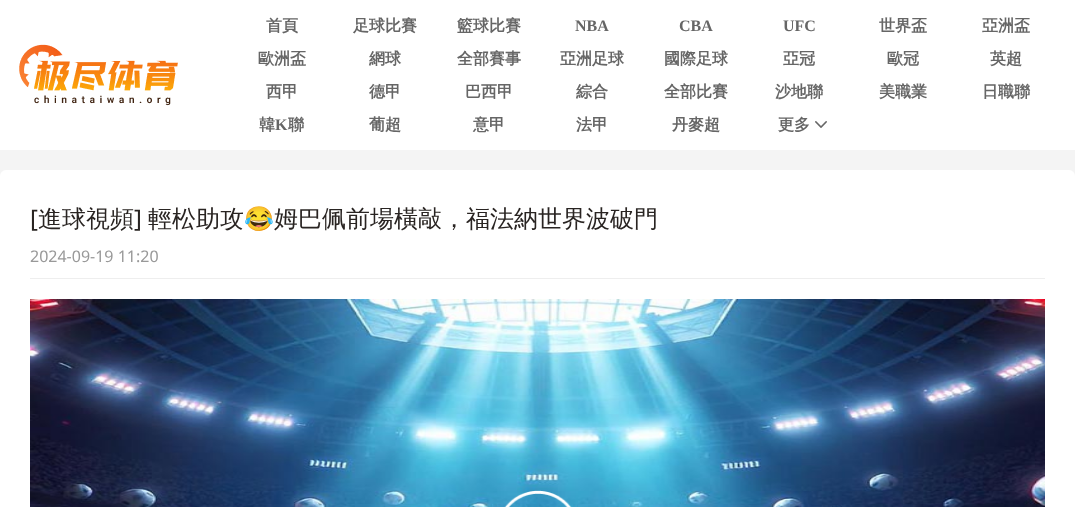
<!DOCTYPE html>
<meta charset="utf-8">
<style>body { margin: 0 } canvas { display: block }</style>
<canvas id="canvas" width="1075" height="507"></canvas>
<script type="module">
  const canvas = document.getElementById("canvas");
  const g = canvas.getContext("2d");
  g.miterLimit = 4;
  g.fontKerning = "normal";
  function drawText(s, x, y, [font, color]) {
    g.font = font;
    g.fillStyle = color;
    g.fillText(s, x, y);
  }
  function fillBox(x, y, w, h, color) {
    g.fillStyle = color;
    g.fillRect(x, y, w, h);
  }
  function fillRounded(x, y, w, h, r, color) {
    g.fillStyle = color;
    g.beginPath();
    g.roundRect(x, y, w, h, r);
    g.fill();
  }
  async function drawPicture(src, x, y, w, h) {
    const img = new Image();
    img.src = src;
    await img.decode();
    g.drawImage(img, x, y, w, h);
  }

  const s1 = ["bold 16px WenQuanYi Zen Hei", "#666666"];
  const s2 = ["bold 16px Liberation Serif", "#666666"];
  const s3 = ["24px Noto Sans", "#292422"];
  const s4 = ["500 24px WenQuanYi Zen Hei", "#292422"];
  const s5 = ["24px Noto Color Emoji", "#292422"];
  const s6 = ["16px Noto Sans", "#999999"];

  fillBox(0, 0, 1075, 507, "#F4F4F4");
  fillBox(0, 0, 1075, 150, "#FFFFFF");
  await drawPicture("pic1.png", 19, 44, 159, 62);
  drawText("首頁", 266, 31, s1);
  drawText("足球比賽", 353, 31, s1);
  drawText("籃球比賽", 457, 31, s1);
  drawText("NBA", 575, 31, s2);
  drawText("CBA", 679, 31, s2);
  drawText("UFC", 783, 31, s2);
  drawText("世界盃", 879, 31, s1);
  drawText("亞洲盃", 982, 31, s1);
  drawText("歐洲盃", 258, 64, s1);
  drawText("網球", 369, 64, s1);
  drawText("全部賽事", 457, 64, s1);
  drawText("亞洲足球", 560, 64, s1);
  drawText("國際足球", 664, 64, s1);
  drawText("亞冠", 783, 64, s1);
  drawText("歐冠", 887, 64, s1);
  drawText("英超", 990, 64, s1);
  drawText("西甲", 266, 97, s1);
  drawText("德甲", 369, 97, s1);
  drawText("巴西甲", 465, 97, s1);
  drawText("綜合", 576, 97, s1);
  drawText("全部比賽", 664, 97, s1);
  drawText("沙地聯", 775, 97, s1);
  drawText("美職業", 879, 97, s1);
  drawText("日職聯", 982, 97, s1);
  drawText("韓", 259, 130, s1);
  drawText("K", 275, 130, s2);
  drawText("聯", 288, 130, s1);
  drawText("葡超", 369, 130, s1);
  drawText("意甲", 473, 130, s1);
  drawText("法甲", 576, 130, s1);
  drawText("丹麥超", 672, 130, s1);
  drawText("更多", 778, 130, s1);
  await drawPicture("pic2.png", 815, 121, 12, 7);
  fillRounded(0, 170, 1075, 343, 6, "#FFFFFF");
  fillBox(30, 278, 1015, 1, "#EEEEEE");
  drawText("[", 30, 227, s3);
  drawText("進球視頻", 38, 227, s4);
  drawText("]", 134, 227, s3);
  drawText("輕松助攻", 148, 227, s4);
  drawText("😂", 244, 227, s5);
  drawText("姆巴佩前場橫敲，福法納世界波破門", 274, 227, s4);
  drawText("2024-09-19 11:20", 30, 262, s6);
  await drawPicture("pic3.png", 30, 299, 1015, 208);
  await drawPicture("pic4.png", 504, 490, 68, 17);
</script>
